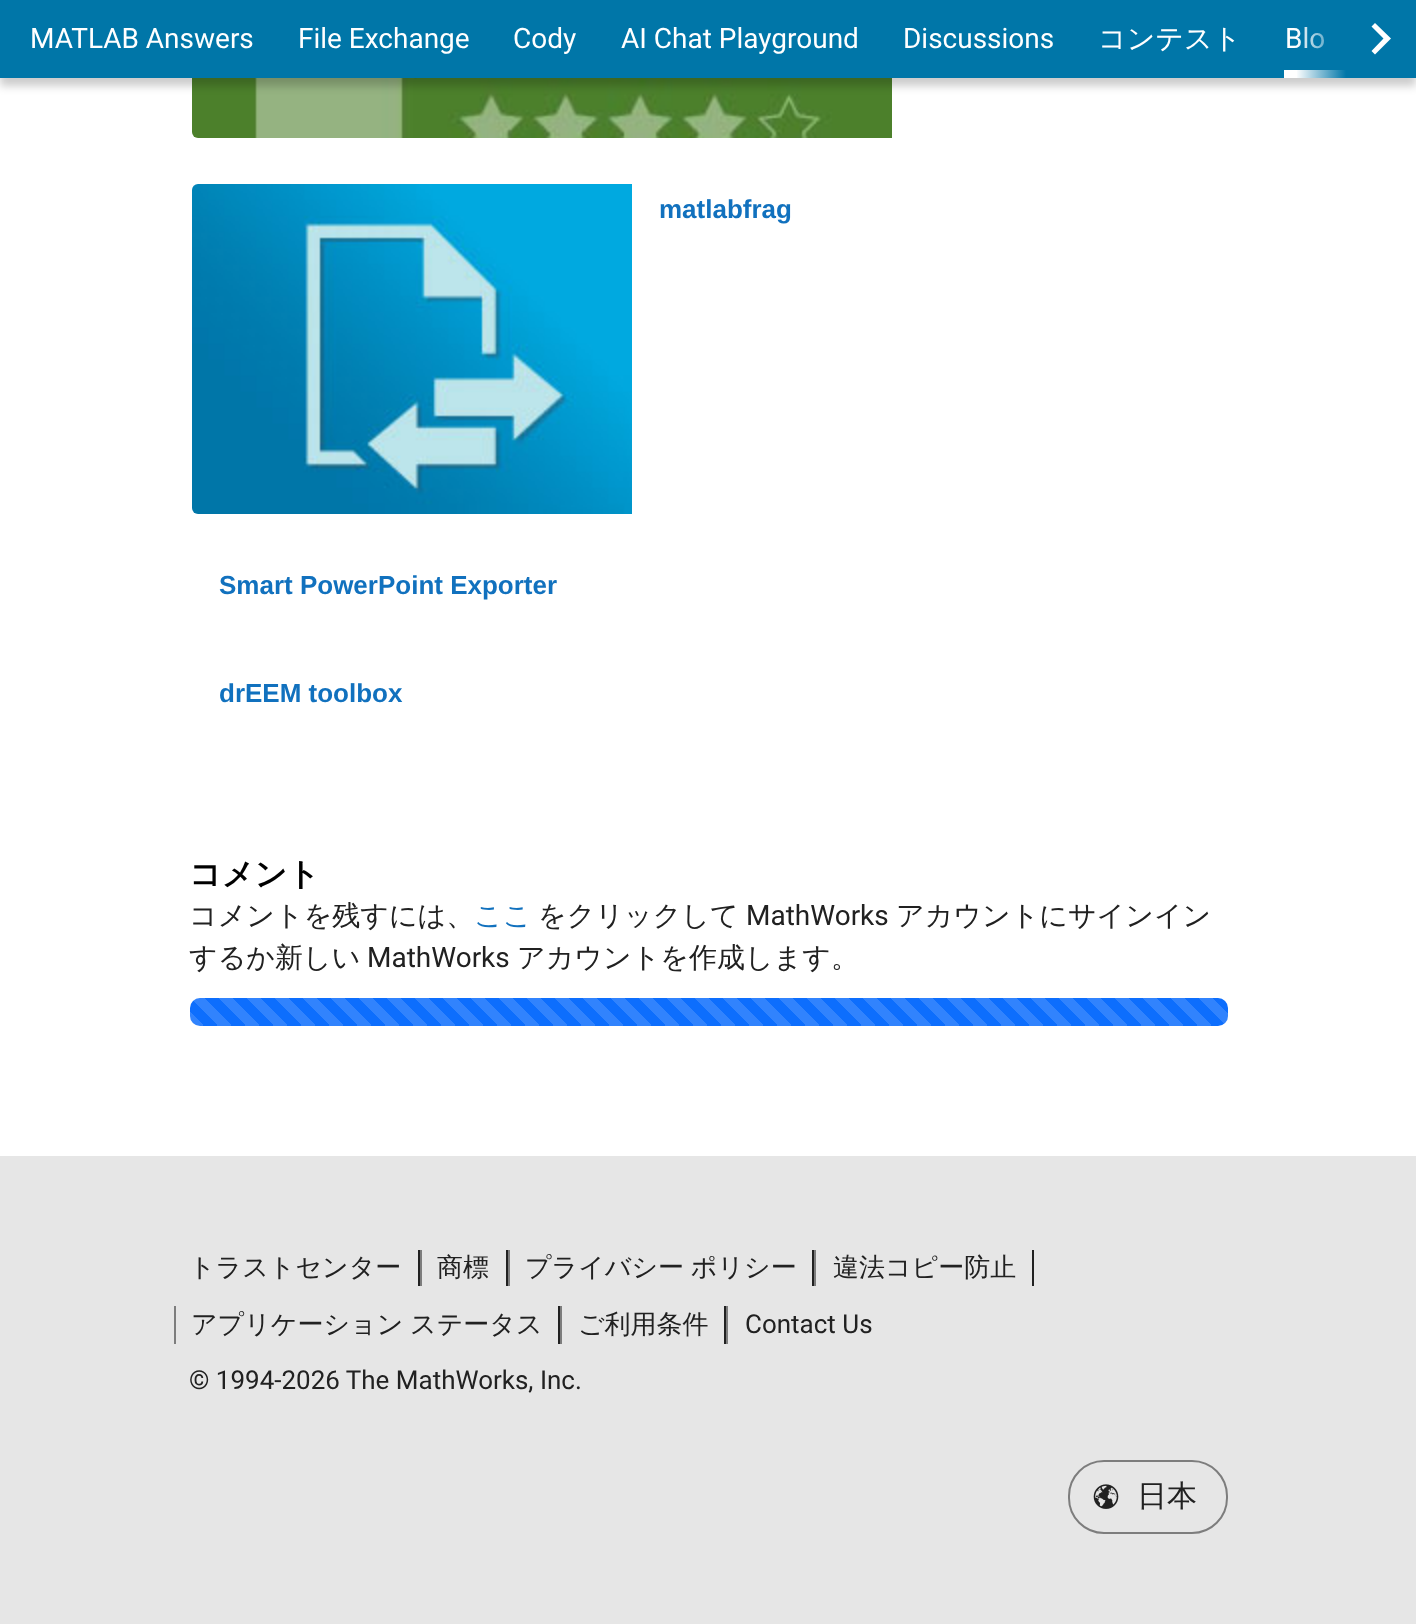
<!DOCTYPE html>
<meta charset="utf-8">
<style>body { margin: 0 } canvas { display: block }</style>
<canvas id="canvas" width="1416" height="1624"></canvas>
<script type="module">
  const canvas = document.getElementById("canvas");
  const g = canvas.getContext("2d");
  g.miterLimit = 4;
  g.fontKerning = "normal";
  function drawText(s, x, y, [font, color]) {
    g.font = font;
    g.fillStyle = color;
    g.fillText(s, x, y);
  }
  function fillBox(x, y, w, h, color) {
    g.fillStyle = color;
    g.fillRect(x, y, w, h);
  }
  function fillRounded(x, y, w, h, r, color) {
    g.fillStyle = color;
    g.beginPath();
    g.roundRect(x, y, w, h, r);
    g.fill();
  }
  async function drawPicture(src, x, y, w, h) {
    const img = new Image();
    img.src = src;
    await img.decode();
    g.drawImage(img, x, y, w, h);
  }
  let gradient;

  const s1 = ["28px Roboto", "#FFFFFF"];
  const s2 = ["500 28px WenQuanYi Zen Hei", "#FFFFFF"];
  const s3 = ["bold 26px Liberation Sans", "#1171BE"];
  const s4 = ["bold 32px WenQuanYi Zen Hei", "#000000"];
  const s5 = ["500 28px WenQuanYi Zen Hei", "#212121"];
  const s6 = ["500 28px WenQuanYi Zen Hei", "#1171BE"];
  const s7 = ["28px Roboto", "#212121"];
  const s8 = ["500 26px WenQuanYi Zen Hei", "#212121"];
  const s9 = ["26px Roboto", "#212121"];
  const s10 = ["500 30px WenQuanYi Zen Hei", "#212121"];

  fillBox(0, 0, 1416, 1624, "#FFFFFF");
  await drawPicture("pic1.png", 192, 78, 700, 60);
  g.fillStyle = "rgba(0, 0, 0, 0.2)";
  g.filter = "blur(4px)";
  g.beginPath();
  g.rect(0, 6, 1416, 80);
  g.fill();
  g.filter = "none";
  fillBox(0, 0, 1346, 78, "#0076A8");
  drawText("MATLAB Answers", 30, 48, s1);
  drawText("File Exchange", 298, 48, s1);
  drawText("Cody", 513, 48, s1);
  drawText("AI Chat Playground", 621, 48, s1);
  drawText("Discussions", 903, 48, s1);
  drawText("コンテスト", 1098, 48, s2);
  fillBox(1284, 70, 62, 8, "#FFFFFF");
  drawText("Blo", 1285, 48, s1);
  gradient = g.createLinearGradient(1296, 38, 1396, 38);
  gradient.addColorStop(0, "rgba(0, 118, 168, 0)");
  gradient.addColorStop(0.5, "#0076A8");
  gradient.addColorStop(1, "#0076A8");
  g.fillStyle = gradient;
  g.fillRect(1297, 0, 95, 78);
  g.fillStyle = "#FFFFFF";
  g.beginPath();
  g.moveTo(1375, 23);
  g.lineTo(1371.5, 26.5);
  g.lineTo(1383.5, 38.5);
  g.lineTo(1371.5, 51);
  g.lineTo(1375, 54.5);
  g.lineTo(1391, 38.5);
  g.closePath();
  g.fill();
  fillBox(1392, 0, 24, 78, "#0076A8");
  fillBox(0, 1156, 1416, 468, "#E6E6E6");
  await drawPicture("pic2.png", 192, 184, 440, 330);
  drawText("matlabfrag", 659, 218, s3);
  drawText("Smart PowerPoint Exporter", 219, 594, s3);
  drawText("drEEM toolbox", 219, 702, s3);
  drawText("コメント", 189, 885, s4);
  drawText("コメントを残すには、", 189, 925, s5);
  drawText("ここ", 474, 925, s6);
  drawText("をクリックして", 538, 925, s5);
  drawText("MathWorks", 746, 925, s7);
  drawText("アカウントにサインイン", 896, 925, s5);
  drawText("するか新しい", 189, 967, s5);
  drawText("MathWorks", 367, 967, s7);
  drawText("アカウントを作成します。", 517, 967, s5);
  fillRounded(190, 998, 1038, 28, 10, "#0D6EFD");
  await drawPicture("pic3.png", 190, 998, 1038, 28);
  fillBox(418, 1250, 2, 36, "#212121");
  drawText("トラストセンター", 189, 1276, s8);
  fillBox(506, 1250, 2, 36, "#212121");
  fillBox(420, 1250, 2, 36, "#7D7D7D");
  drawText("商標", 437, 1276, s8);
  fillBox(812, 1250, 2, 36, "#212121");
  fillBox(508, 1250, 2, 36, "#7D7D7D");
  g.wordSpacing = "-1px";
  drawText("プライバシー ポリシー", 525, 1276, s8);
  fillBox(1032, 1250, 2, 36, "#212121");
  fillBox(814, 1250, 2, 36, "#7D7D7D");
  g.wordSpacing = "0px";
  drawText("違法コピー防止", 833, 1276, s8);
  fillBox(558, 1306, 2, 38, "#212121");
  fillBox(174, 1306, 2, 38, "#7D7D7D");
  g.wordSpacing = "-1px";
  drawText("アプリケーション ステータス", 191, 1333, s8);
  fillBox(724, 1306, 2, 38, "#212121");
  fillBox(560, 1306, 2, 38, "#7D7D7D");
  g.wordSpacing = "0px";
  drawText("ご利用条件", 578, 1333, s8);
  fillBox(726, 1306, 2, 38, "#7D7D7D");
  drawText("Contact Us", 745, 1333, s9);
  drawText("© 1994-2026 The MathWorks, Inc.", 189, 1389, s9);
  g.beginPath();
  g.roundRect(1069, 1461, 158, 72, 35);
  g.strokeStyle = "#7D7D7D";
  g.lineWidth = 2;
  g.stroke();
  await drawPicture("pic4.png", 1093, 1484, 26, 25);
  drawText("日本", 1137, 1506, s10);
</script>
